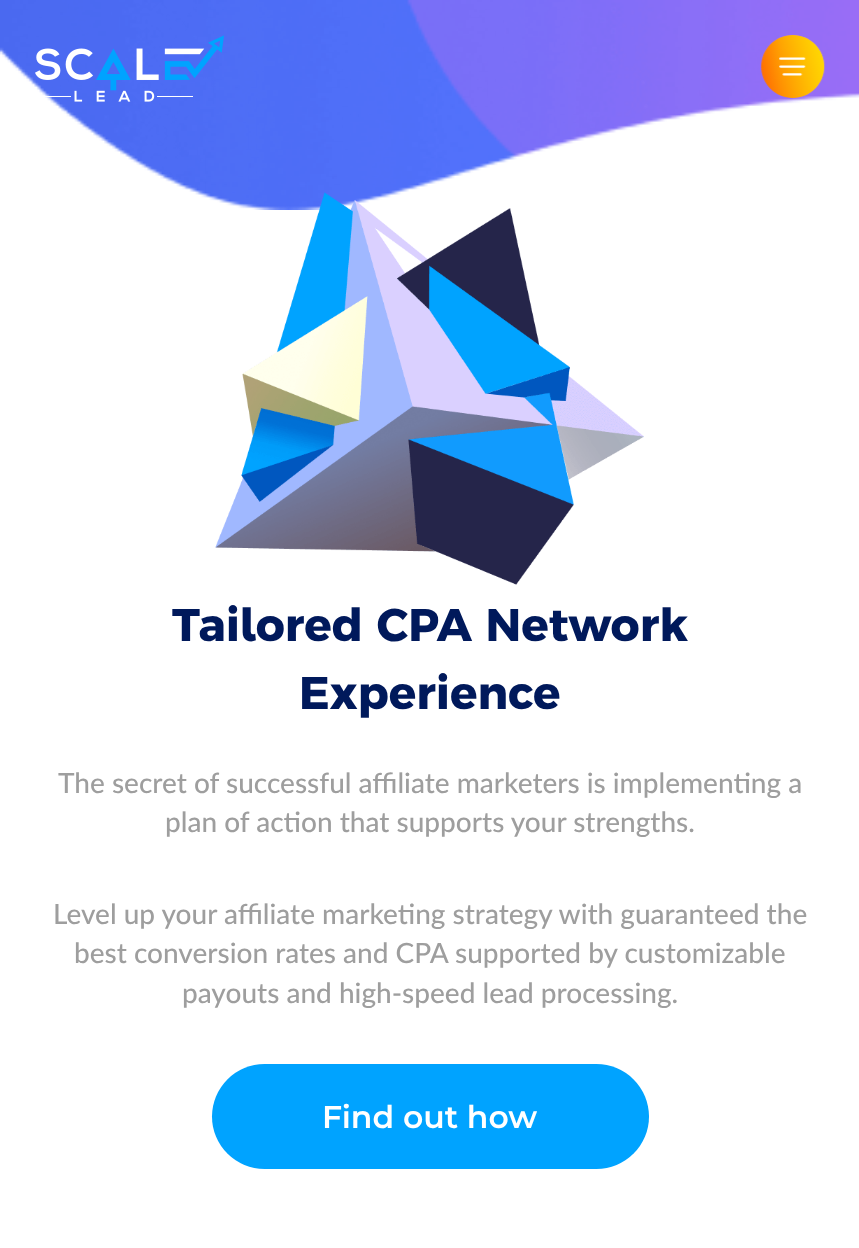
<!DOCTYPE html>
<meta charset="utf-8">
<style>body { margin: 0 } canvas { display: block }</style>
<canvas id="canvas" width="859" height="1248"></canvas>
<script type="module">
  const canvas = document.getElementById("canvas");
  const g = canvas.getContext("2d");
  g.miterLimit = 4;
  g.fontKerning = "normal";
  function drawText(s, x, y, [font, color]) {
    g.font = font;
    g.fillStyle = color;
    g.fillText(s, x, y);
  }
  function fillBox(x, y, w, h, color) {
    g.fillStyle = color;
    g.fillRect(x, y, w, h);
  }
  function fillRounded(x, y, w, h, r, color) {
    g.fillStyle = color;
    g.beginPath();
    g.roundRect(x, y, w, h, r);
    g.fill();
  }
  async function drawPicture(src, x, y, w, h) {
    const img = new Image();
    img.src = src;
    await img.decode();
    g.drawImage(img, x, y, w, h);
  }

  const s1 = ["bold 45.5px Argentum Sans", "#00195B"];
  const s2 = ["500 28px Lato", "#9E9E9E"];
  const s3 = ["600 31.5px Montserrat", "#FFFFFF"];

  fillBox(0, 0, 859, 1248, "#FFFFFF");
  await drawPicture("pic3.png", 0, 0, 859, 210);
  await drawPicture("pic1.png", 35, 35, 189, 67);
  await drawPicture("pic2.png", 761, 35, 64, 63);
  await drawPicture("pic4.png", 215, 192, 429, 393);
  drawText("Tailored CPA Network", 172, 641, s1);
  drawText("Experience", 299, 709, s1);
  drawText("The secret of successful affiliate marketers is implementing a", 58, 793, s2);
  drawText("plan of action that supports your strengths.", 165, 832, s2);
  drawText("Level up your affiliate marketing strategy with guaranteed the", 53, 924, s2);
  drawText("best conversion rates and CPA supported by customizable", 74, 963, s2);
  drawText("payouts and high-speed lead processing.", 182, 1003, s2);
  fillRounded(212, 1064, 437, 105, 52.5, "#00A3FF");
  drawText("Find out how", 322, 1128, s3);
</script>
